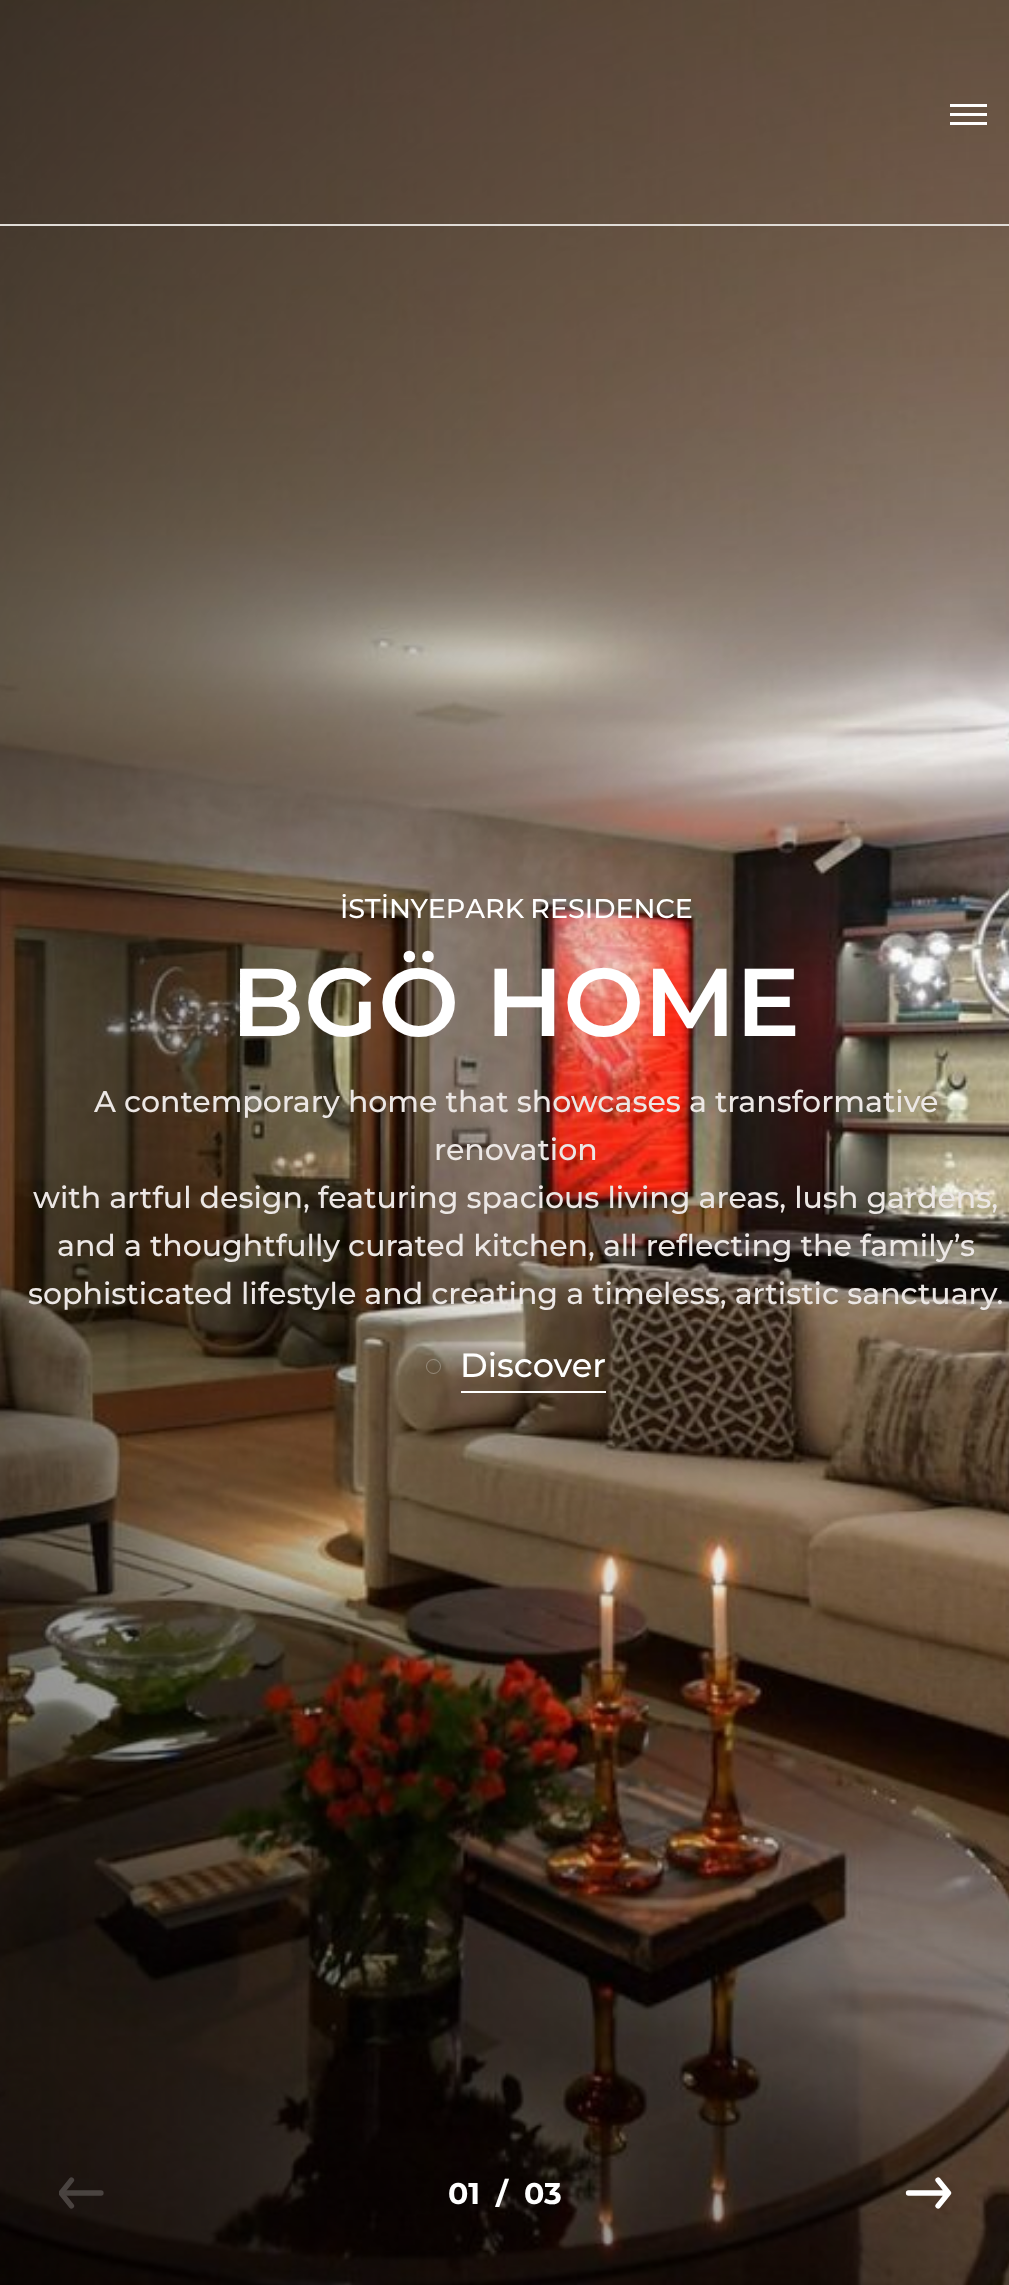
<!DOCTYPE html>
<meta charset="utf-8">
<style>body { margin: 0 } canvas { display: block }</style>
<canvas id="canvas" width="1009" height="2285"></canvas>
<script type="module">
  const canvas = document.getElementById("canvas");
  const g = canvas.getContext("2d");
  g.miterLimit = 4;
  g.fontKerning = "normal";
  function drawText(s, x, y, [font, color]) {
    g.font = font;
    g.fillStyle = color;
    g.fillText(s, x, y);
  }
  function fillBox(x, y, w, h, color) {
    g.fillStyle = color;
    g.fillRect(x, y, w, h);
  }
  async function drawPicture(src, x, y, w, h) {
    const img = new Image();
    img.src = src;
    await img.decode();
    g.drawImage(img, x, y, w, h);
  }

  const s1 = ["500 27px Montserrat", "#FFFFFF"];
  const s2 = ["600 96px Montserrat", "#FFFFFF"];
  const s3 = ["500 30px Montserrat", "#ECE7E5"];
  const s4 = ["500 33.5px Montserrat", "#FFFFFF"];
  const s5 = ["bold 30px Montserrat", "#FFFFFF"];

  fillBox(0, 0, 1009, 2285, "#FFFFFF");
  await drawPicture("pic1.png", 0, 0, 1009, 2285);
  fillBox(0, 224, 1009, 2, "#E0DCD7");
  fillBox(950, 113, 37, 3, "#FFFFFF");
  fillBox(950, 104, 37, 3, "#FFFFFF");
  fillBox(950, 122, 37, 3, "#FFFFFF");
  g.wordSpacing = "-1px";
  drawText("İSTİNYEPARK RESIDENCE", 340, 918, s1);
  g.wordSpacing = "0px";
  drawText("BGÖ HOME", 231, 1036, s2);
  drawText("A contemporary home that showcases a transformative", 94, 1112, s3);
  drawText("renovation", 434, 1160, s3);
  drawText("with artful design, featuring spacious living areas, lush gardens,", 33, 1208, s3);
  drawText("and a thoughtfully curated kitchen, all reflecting the family’s", 57, 1256, s3);
  drawText("sophisticated lifestyle and creating a timeless, artistic sanctuary.", 28, 1304, s3);
  g.beginPath();
  g.arc(433.5, 1366.5, 7, 0, Math.PI * 2);
  g.strokeStyle = "#FFFFFF";
  g.lineWidth = 0.3;
  g.stroke();
  drawText("Discover", 460, 1377, s4);
  fillBox(461, 1391, 145, 2, "#FFFFFF");
  g.beginPath();
  g.moveTo(101, 2193);
  g.lineTo(64, 2193);
  g.strokeStyle = "rgba(255, 255, 255, 0.2)";
  g.lineWidth = 5.3;
  g.lineCap = "round";
  g.lineJoin = "round";
  g.stroke();
  g.save();
  g.beginPath();
  g.rect(59, 2171, 45, 45);
  g.clip();
  g.beginPath();
  g.moveTo(71.5, 2206);
  g.lineTo(61, 2193);
  g.strokeStyle = "#49423F";
  g.stroke();
  g.beginPath();
  g.moveTo(71.5, 2180);
  g.lineTo(61, 2193);
  g.strokeStyle = "#494340";
  g.stroke();
  g.restore();
  g.beginPath();
  g.moveTo(908.5, 2193);
  g.lineTo(945.5, 2193);
  g.moveTo(938, 2180);
  g.lineTo(948.5, 2193);
  g.moveTo(938, 2206);
  g.lineTo(948.5, 2193);
  g.strokeStyle = "#FFFFFF";
  g.stroke();
  drawText("01", 448, 2204, s5);
  drawText("/", 496, 2204, s5);
  drawText("03", 524, 2204, s5);
</script>
